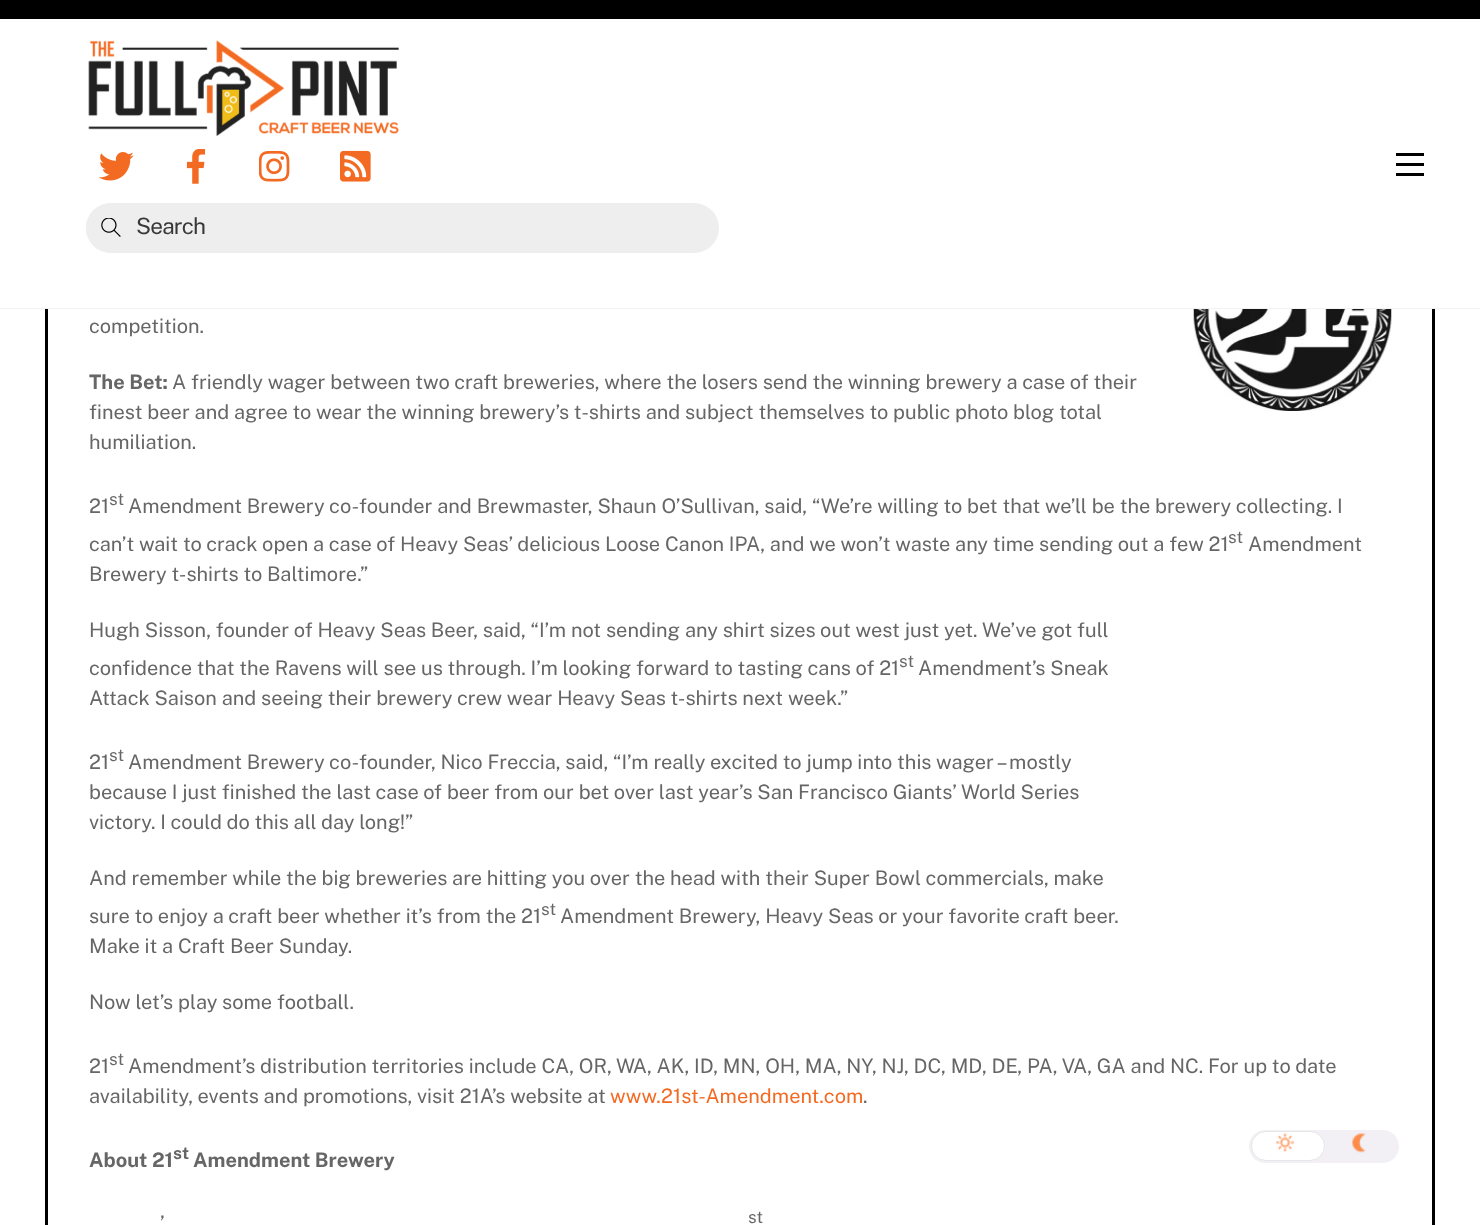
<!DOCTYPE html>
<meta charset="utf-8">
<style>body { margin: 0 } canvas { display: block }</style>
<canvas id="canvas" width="1480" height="1225"></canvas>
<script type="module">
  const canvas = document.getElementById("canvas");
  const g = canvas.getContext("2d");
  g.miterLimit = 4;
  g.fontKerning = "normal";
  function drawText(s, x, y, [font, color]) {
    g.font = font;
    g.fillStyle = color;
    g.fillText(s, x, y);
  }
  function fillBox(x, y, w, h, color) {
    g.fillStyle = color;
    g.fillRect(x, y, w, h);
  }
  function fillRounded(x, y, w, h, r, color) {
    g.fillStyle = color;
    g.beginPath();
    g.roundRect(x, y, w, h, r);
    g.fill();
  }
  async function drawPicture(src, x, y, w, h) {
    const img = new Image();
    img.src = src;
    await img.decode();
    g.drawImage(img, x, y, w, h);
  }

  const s1 = ["22.5px Public Sans", "#383838"];
  const s2 = ["20px Public Sans", "#666666"];
  const s3 = ["bold 20px Public Sans", "#666666"];
  const s4 = ["17px Public Sans", "#666666"];
  const s5 = ["20px Public Sans", "#F36A22"];
  const s6 = ["bold 17px Public Sans", "#666666"];

  fillBox(0, 0, 1480, 1225, "#FFFFFF");
  g.strokeStyle = "#000000";
  g.lineWidth = 3;
  g.strokeRect(46.5, -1.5, 1387, 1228);
  fillBox(45, 19, 1390, 289, "#FFFFFF");
  fillBox(0, 0, 1480, 19, "#000000");
  fillBox(0, 308, 1480, 1, "#F2F2F2");
  fillBox(1396, 173, 28, 3, "#000000");
  fillBox(1396, 153, 28, 3, "#000000");
  fillBox(1396, 163, 28, 3, "#000000");
  await drawPicture("pic1.png", 88, 40, 311, 96);
  await drawPicture("pic2.png", 99, 152, 35, 29);
  await drawPicture("pic3.png", 186, 149, 19, 35);
  await drawPicture("pic4.png", 259, 150, 31, 32);
  await drawPicture("pic5.png", 340, 150, 31, 32);
  fillRounded(86, 203, 633, 50, 25, "#EEEEEE");
  g.beginPath();
  g.arc(111, 228, 25, 0, Math.PI * 2);
  g.fill();
  await drawPicture("pic6.png", 101, 218, 20, 19);
  g.letterSpacing = "-0.75px";
  drawText("Search", 136, 234, s1);
  g.letterSpacing = "0px";
  drawText("competition.", 89, 333, s2);
  await drawPicture("pic7.png", 1193, 309, 199, 102);
  drawText("The Bet:", 89, 389, s3);
  drawText("A friendly wager between two craft breweries, where the losers send the winning brewery a case of their", 172, 389, s2);
  drawText("finest beer and agree to wear the winning brewery’s t-shirts and subject themselves to public photo blog total", 89, 419, s2);
  drawText("humiliation.", 89, 449, s2);
  drawText("21", 89, 513, s2);
  drawText("st", 109, 505, s4);
  drawText("Amendment Brewery co-founder and Brewmaster, Shaun O’Sullivan, said, “We’re willing to bet that we’ll be the brewery collecting. I", 128, 513, s2);
  drawText("can’t wait to crack open a case of Heavy Seas’ delicious Loose Canon IPA, and we won’t waste any time sending out a few 21", 89, 551, s2);
  drawText("st", 1228, 543, s4);
  drawText("Amendment", 1248, 551, s2);
  drawText("Brewery t-shirts to Baltimore.”", 89, 581, s2);
  drawText("Hugh Sisson, founder of Heavy Seas Beer, said, “I’m not sending any shirt sizes out west just yet. We’ve got full", 89, 637, s2);
  drawText("confidence that the Ravens will see us through. I’m looking forward to tasting cans of 21", 89, 675, s2);
  drawText("st", 899, 667, s4);
  drawText("Amendment’s Sneak", 918, 675, s2);
  drawText("Attack Saison and seeing their brewery crew wear Heavy Seas t-shirts next week.”", 89, 705, s2);
  drawText("21", 89, 769, s2);
  drawText("st", 109, 761, s4);
  drawText("Amendment Brewery co-founder, Nico Freccia, said, “I’m really excited to jump into this wager – mostly", 128, 769, s2);
  drawText("because I just finished the last case of beer from our bet over last year’s San Francisco Giants’ World Series", 89, 799, s2);
  drawText("victory. I could do this all day long!”", 89, 829, s2);
  drawText("And remember while the big breweries are hitting you over the head with their Super Bowl commercials, make", 89, 885, s2);
  drawText("sure to enjoy a craft beer whether it’s from the 21", 89, 923, s2);
  drawText("st", 541, 915, s4);
  drawText("Amendment Brewery, Heavy Seas or your favorite craft beer.", 560, 923, s2);
  drawText("Make it a Craft Beer Sunday.", 89, 953, s2);
  drawText("Now let’s play some football.", 89, 1009, s2);
  drawText("21", 89, 1073, s2);
  drawText("st", 109, 1065, s4);
  drawText("Amendment’s distribution territories include CA, OR, WA, AK, ID, MN, OH, MA, NY, NJ, DC, MD, DE, PA, VA, GA and NC. For up to date", 128, 1073, s2);
  drawText("availability, events and promotions, visit 21A’s website at", 89, 1103, s2);
  drawText("www.21st-Amendment.com", 610, 1103, s5);
  drawText(".", 863, 1103, s2);
  drawText("About 21", 89, 1167, s3);
  drawText("st", 173, 1159, s6);
  drawText("Amendment Brewery", 193, 1167, s3);
  drawText("’", 160, 1230, s2);
  drawText("st", 748, 1223, s4);
  fillRounded(1249, 1130, 150, 33, 16.5, "#F2F0F4");
  g.fillStyle = "#FFFFFF";
  g.beginPath();
  g.roundRect(1251.5, 1131.5, 73, 29, 14.5);
  g.fill();
  g.strokeStyle = "#E7E7E7";
  g.lineWidth = 1;
  g.stroke();
  await drawPicture("pic8.png", 1275, 1132, 20, 21);
  await drawPicture("pic9.png", 1352, 1133, 14, 20);
</script>
